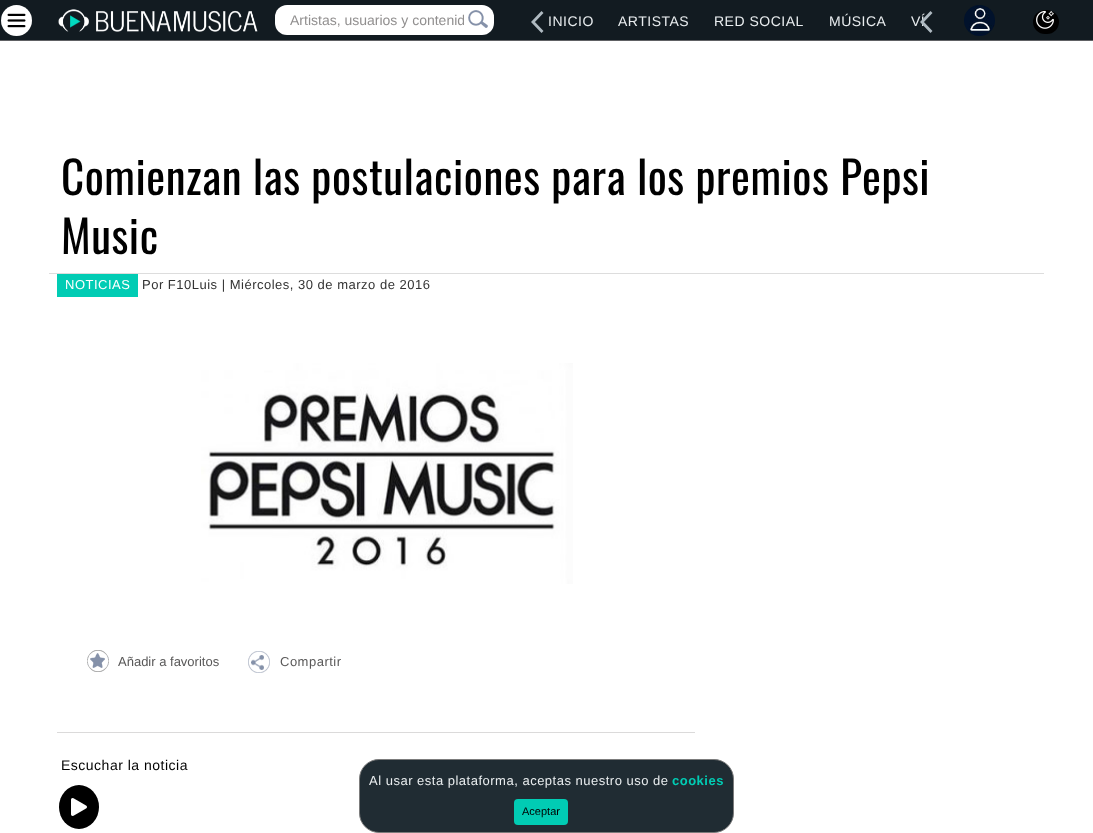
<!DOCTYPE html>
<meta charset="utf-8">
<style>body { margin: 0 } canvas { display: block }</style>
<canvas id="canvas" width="1093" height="833"></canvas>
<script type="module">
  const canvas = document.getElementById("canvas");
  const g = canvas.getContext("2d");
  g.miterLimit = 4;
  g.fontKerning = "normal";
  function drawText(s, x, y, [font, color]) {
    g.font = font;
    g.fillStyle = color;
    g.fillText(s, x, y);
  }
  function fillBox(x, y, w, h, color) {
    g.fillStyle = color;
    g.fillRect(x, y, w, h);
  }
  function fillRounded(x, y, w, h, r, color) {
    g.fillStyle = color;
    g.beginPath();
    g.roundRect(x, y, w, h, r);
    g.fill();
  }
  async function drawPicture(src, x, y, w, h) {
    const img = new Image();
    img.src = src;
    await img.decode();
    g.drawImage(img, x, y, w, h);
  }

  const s1 = ["14px Liberation Sans", "#918F8F"];
  const s2 = ["14px Liberation Sans", "#E9EDEF"];
  const s3 = ["45px Oswald", "#000000"];
  const s4 = ["13px Liberation Sans", "#FFFFFF"];
  const s5 = ["13px Liberation Sans", "#333333"];
  const s6 = ["13px Liberation Sans", "#595858"];
  const s7 = ["14px Liberation Sans", "#000000"];
  const s8 = ["13px Liberation Sans", "#E9EDEF"];
  const s9 = ["bold 13px Liberation Sans", "#01CCB4"];
  const s10 = ["11px Liberation Sans", "#000000"];

  fillBox(0, 0, 1093, 833, "#FFFFFF");
  fillBox(0, 0, 1093, 40, "#121B21");
  g.fillStyle = "#FFFFFF";
  g.beginPath();
  g.arc(16.5, 20.5, 15.5, 0, Math.PI * 2);
  g.fill();
  await drawPicture("pic1.png", 7, 13, 19, 15);
  await drawPicture("pic2.png", 58, 9, 200, 23);
  fillRounded(275, 5, 219, 30, 12, "#FFFFFF");
  g.fillStyle = "rgba(255, 255, 255, 0.07)";
  g.beginPath();
  g.moveTo(287, 6);
  g.lineTo(482, 6);
  g.bezierCurveTo(489, 6, 494, 11, 494, 18);
  g.lineTo(494, 17);
  g.bezierCurveTo(494, 10, 489, 5, 482, 5);
  g.lineTo(287, 5);
  g.bezierCurveTo(280, 5, 275, 10, 275, 17);
  g.lineTo(275, 18);
  g.bezierCurveTo(275, 11, 280, 6, 287, 6);
  g.closePath();
  g.fill();
  g.save();
  g.beginPath();
  g.rect(290, 12, 174, 16);
  g.clip();
  drawText("Artistas, usuarios y contenid", 290, 25, s1);
  g.restore();
  await drawPicture("pic3.png", 468, 10, 20, 18);
  g.fillStyle = "#AFBAC1";
  g.beginPath();
  g.moveTo(541.5, 11);
  g.lineTo(531, 22);
  g.lineTo(541.5, 33);
  g.lineTo(543.5, 31);
  g.lineTo(534, 21);
  g.lineTo(534, 23);
  g.lineTo(543.5, 13);
  g.closePath();
  g.fill();
  g.letterSpacing = "0.5px";
  drawText("INICIO", 548, 26, s2);
  drawText("ARTISTAS", 618, 26, s2);
  drawText("RED SOCIAL", 714, 26, s2);
  drawText("MÚSICA", 829, 26, s2);
  drawText("VÍ", 911, 26, s2);
  g.fillStyle = "#AFBAC1";
  g.beginPath();
  g.moveTo(930.5, 11);
  g.lineTo(920, 22);
  g.lineTo(930.5, 33);
  g.lineTo(932.5, 31);
  g.lineTo(923, 21);
  g.lineTo(923, 23);
  g.lineTo(932.5, 13);
  g.closePath();
  g.fill();
  await drawPicture("pic4.png", 964, 5, 31, 31);
  fillRounded(1033, 10, 26, 24, 12, "#000000");
  await drawPicture("pic5.png", 1036, 10, 18, 19);
  fillBox(0, 40, 1093, 1, "#606164");
  drawText("Comienzan las postulaciones para los premios Pepsi", 61, 195, s3);
  drawText("Music", 61, 254, s3);
  fillBox(49, 273, 995, 1, "#DDDDDD");
  fillBox(57, 274, 81, 23, "#01CCB4");
  drawText("NOTICIAS", 65, 289, s4);
  drawText("Por F10Luis | Miércoles, 30 de marzo de 2016", 142, 289, s5);
  await drawPicture("pic6.png", 201, 363, 372, 221);
  await drawPicture("pic7.png", 87, 650, 22, 22);
  g.letterSpacing = "0px";
  drawText("Añadir a favoritos", 118, 666, s6);
  await drawPicture("pic8.png", 248, 651, 22, 22);
  g.letterSpacing = "0.5px";
  drawText("Compartir", 280, 666, s6);
  fillBox(57, 732, 638, 1, "#DBDADA");
  drawText("Escuchar la noticia", 61, 770, s7);
  g.beginPath();
  g.ellipse(79, 807, 20, 22, 0, 0, Math.PI * 2);
  g.fill();
  await drawPicture("pic9.png", 71, 798, 16, 18);
  g.fillStyle = "#202C33";
  g.beginPath();
  g.roundRect(359.5, 759.5, 374, 73, 19.5);
  g.fill();
  g.strokeStyle = "#7C7C7C";
  g.stroke();
  drawText("Al usar esta plataforma, aceptas nuestro uso de", 369, 785, s8);
  drawText("cookies", 672, 785, s9);
  fillRounded(514, 799, 54, 26, 4, "#01CCB4");
  g.letterSpacing = "0px";
  drawText("Aceptar", 522, 815, s10);
</script>
